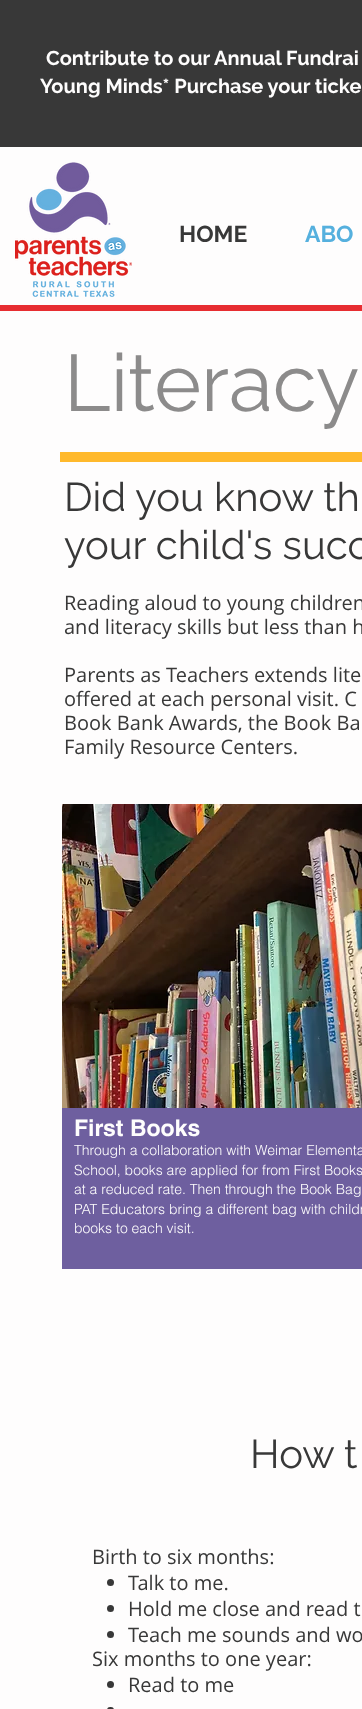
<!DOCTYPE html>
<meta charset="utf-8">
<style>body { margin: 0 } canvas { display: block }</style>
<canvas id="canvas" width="362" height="1709"></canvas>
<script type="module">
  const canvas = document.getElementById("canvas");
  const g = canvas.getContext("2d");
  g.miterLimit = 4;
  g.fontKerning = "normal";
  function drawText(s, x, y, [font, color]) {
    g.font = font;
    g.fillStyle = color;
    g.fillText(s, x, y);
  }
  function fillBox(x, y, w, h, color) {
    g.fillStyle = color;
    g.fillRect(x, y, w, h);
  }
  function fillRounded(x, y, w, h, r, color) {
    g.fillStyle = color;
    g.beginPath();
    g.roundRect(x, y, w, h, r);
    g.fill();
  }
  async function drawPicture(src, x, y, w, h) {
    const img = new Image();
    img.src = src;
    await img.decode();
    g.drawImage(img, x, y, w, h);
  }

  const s1 = ["bold 20px Raleway", "#FEFDFD"];
  const s2 = ["bold 23px Raleway", "#383838"];
  const s3 = ["bold 23px Raleway", "#55B0DE"];
  const s4 = ["80px Raleway", "#8C8B8B"];
  const s5 = ["40px Raleway", "#383838"];
  const s6 = ["20px Open Sans", "#383838"];
  const s7 = ["bold 23px helvetica", "#FEFDFD"];
  const s8 = ["300 14px helvetica", "#FEFDFD"];

  fillBox(0, 0, 362, 1709, "#FEFDFD");
  fillBox(0, 0, 362, 147, "#383838");
  drawText("Contribute to our Annual Fundrai", 46, 65, s1);
  drawText("Young Minds* Purchase your ticke", 40, 93, s1);
  await drawPicture("pic1.png", 15, 162, 117, 135);
  drawText("HOME", 179, 242, s2);
  drawText("ABO", 305, 242, s3);
  fillBox(0, 305, 362, 6, "#E72D31");
  drawText("Literacy", 64, 411, s4);
  fillBox(60, 452, 302, 10, "#FFB92C");
  drawText("Did you know th", 64, 511, s5);
  drawText("your child's succ", 64, 559, s5);
  drawText("Reading aloud to young children", 64, 610, s6);
  drawText("and literacy skills but less than h", 64, 634, s6);
  drawText("Parents as Teachers extends lite", 64, 682, s6);
  drawText("offered at each personal visit. C", 64, 706, s6);
  drawText("Book Bank Awards, the Book Ba", 64, 730, s6);
  drawText("Family Resource Centers.", 64, 754, s6);
  await drawPicture("pic2.png", 62, 804, 300, 304);
  fillBox(62, 1108, 300, 161, "#6E5F9F");
  drawText("First Books", 74, 1136, s7);
  drawText("Through a collaboration with Weimar Elementa", 74, 1155, s8);
  drawText("School, books are applied for from First Books", 74, 1175, s8);
  drawText("at a reduced rate. Then through the Book Bag", 74, 1194, s8);
  drawText("PAT Educators bring a different bag with childr", 74, 1214, s8);
  drawText("books to each visit.", 74, 1233, s8);
  drawText("How t", 250, 1468, s5);
  drawText("Birth to six months:", 92, 1564, s6);
  g.beginPath();
  g.arc(110.5, 1582.5, 3.5, 0, Math.PI * 2);
  g.fill();
  drawText("Talk to me.", 128, 1590, s6);
  g.beginPath();
  g.arc(110.5, 1608.5, 3.5, 0, Math.PI * 2);
  g.fill();
  drawText("Hold me close and read t", 128, 1616, s6);
  g.beginPath();
  g.arc(110.5, 1634.5, 3.5, 0, Math.PI * 2);
  g.fill();
  drawText("Teach me sounds and wo", 128, 1642, s6);
  drawText("Six months to one year:", 92, 1666, s6);
  g.beginPath();
  g.arc(110.5, 1684.5, 3.5, 0, Math.PI * 2);
  g.fill();
  drawText("Read to me", 128, 1692, s6);
  fillRounded(107, 1707, 7, 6, 3.5, "#383838");
</script>
